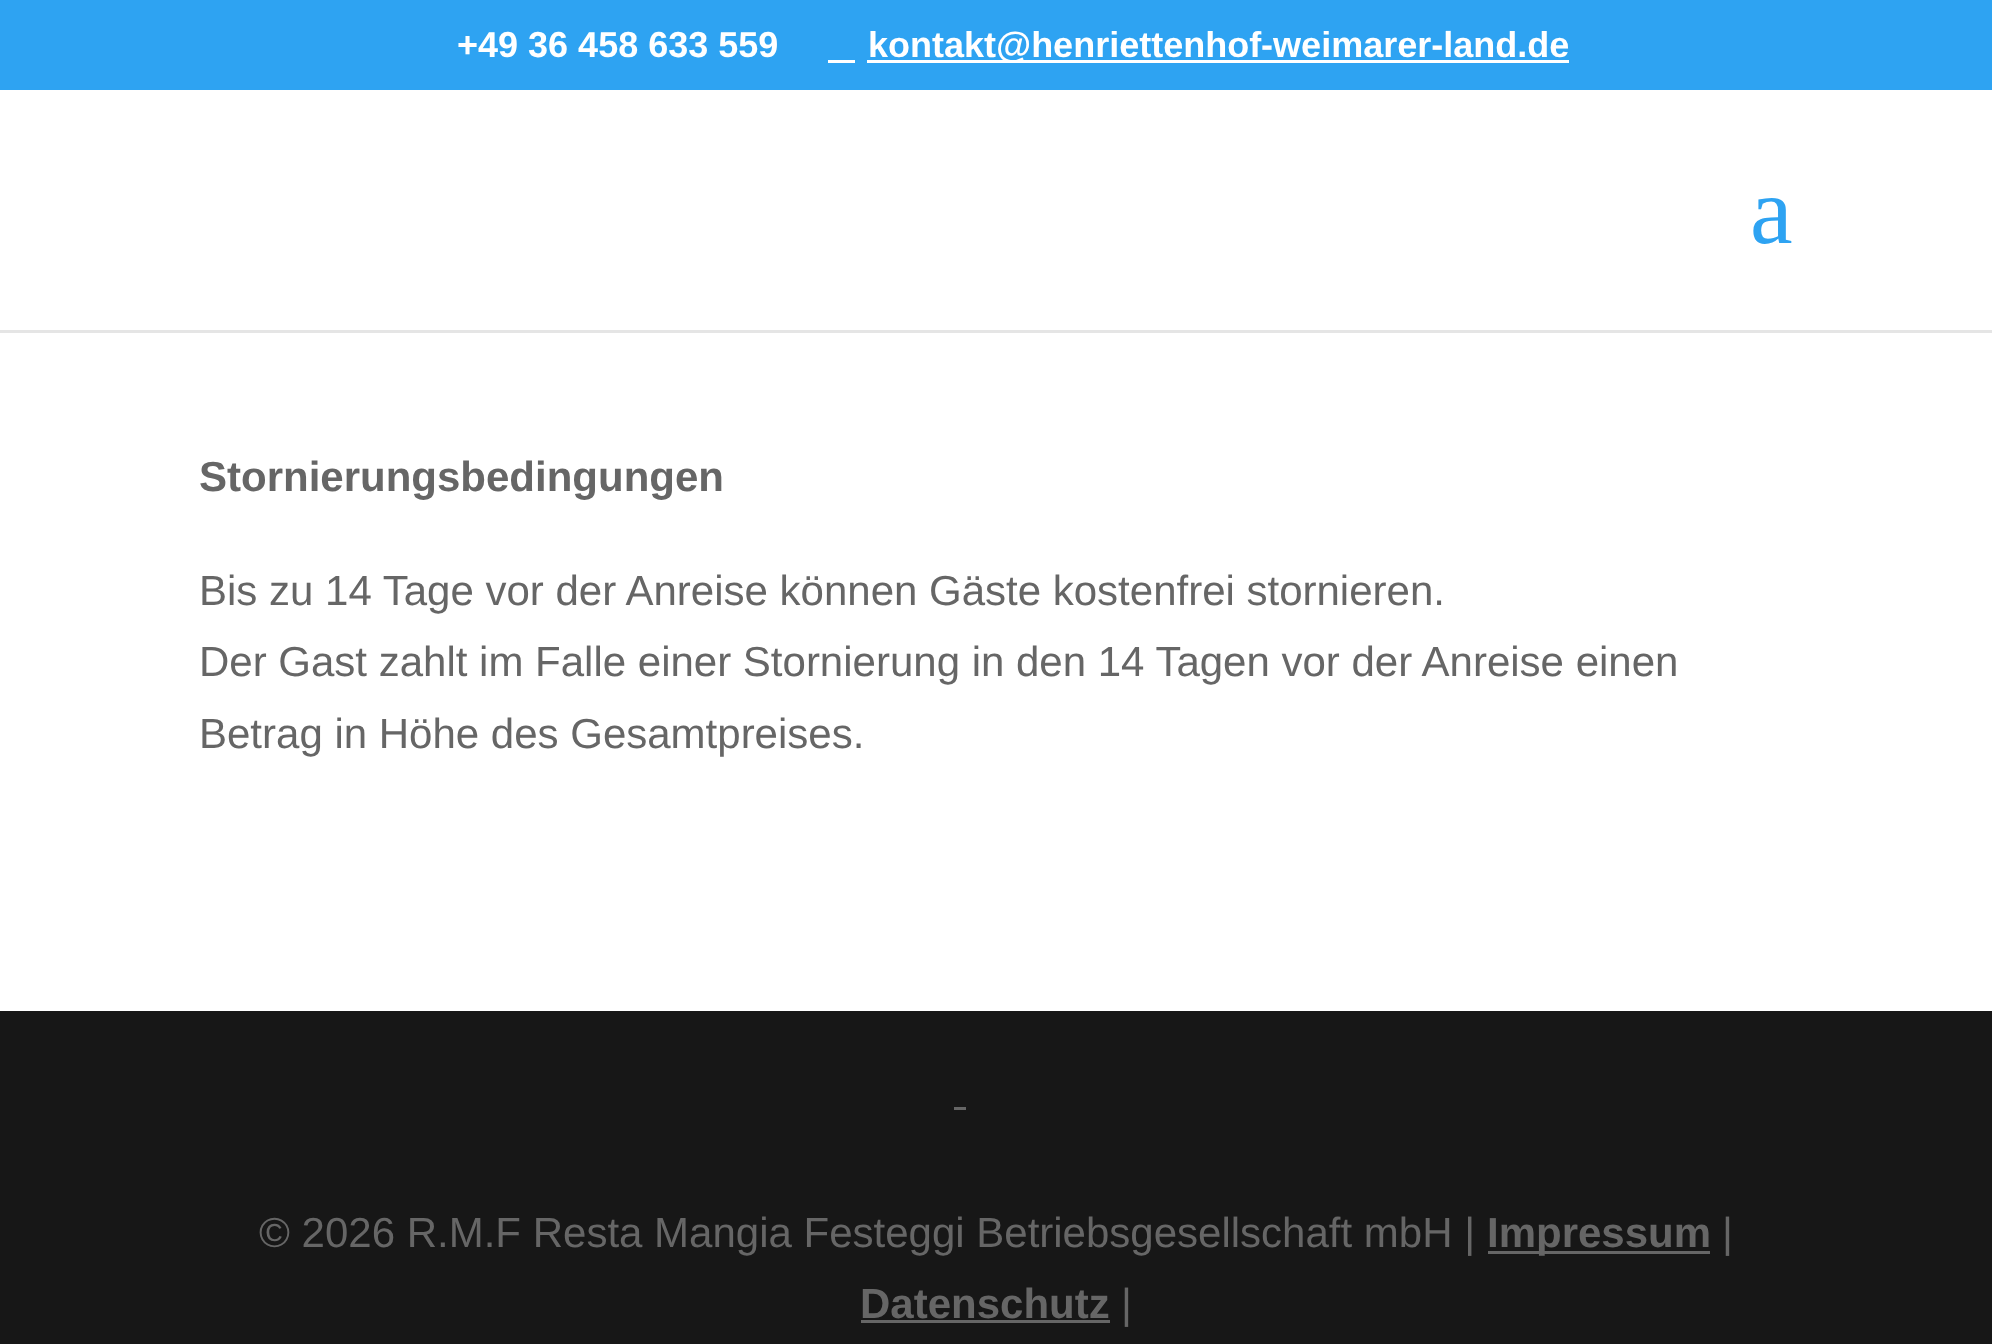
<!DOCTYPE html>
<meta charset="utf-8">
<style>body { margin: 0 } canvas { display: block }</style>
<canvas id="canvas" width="1992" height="1344"></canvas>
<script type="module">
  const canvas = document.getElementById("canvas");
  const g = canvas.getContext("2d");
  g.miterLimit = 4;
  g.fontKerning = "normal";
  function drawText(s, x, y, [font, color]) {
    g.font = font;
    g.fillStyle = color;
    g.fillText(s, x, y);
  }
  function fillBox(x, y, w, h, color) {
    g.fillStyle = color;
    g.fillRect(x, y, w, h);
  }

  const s1 = ["bold 36px Liberation Sans", "#FFFFFF"];
  const s2 = ["96px Liberation Serif", "#2EA3F2"];
  const s3 = ["bold 42px Liberation Sans", "#666666"];
  const s4 = ["42px Liberation Sans", "#666666"];

  fillBox(0, 0, 1992, 1344, "#FFFFFF");
  fillBox(0, 0, 1992, 90, "#2EA3F2");
  drawText("+49 36 458 633 559", 457, 57, s1);
  fillBox(867, 60, 702, 3, "#FFFFFF");
  drawText("kontakt@henriettenhof-weimarer-land.de", 868, 57, s1);
  fillBox(828, 60, 27, 3, "#FFFFFF");
  fillBox(0, 330, 1992, 3, "rgba(0, 0, 0, 0.1)");
  drawText("a", 1750, 243, s2);
  drawText("Stornierungsbedingungen", 199, 491, s3);
  drawText("Bis zu 14 Tage vor der Anreise können Gäste kostenfrei stornieren.", 199, 605, s4);
  drawText("Der Gast zahlt im Falle einer Stornierung in den 14 Tagen vor der Anreise einen", 199, 676, s4);
  drawText("Betrag in Höhe des Gesamtpreises.", 199, 748, s4);
  fillBox(0, 1011, 1992, 333, "#171717");
  fillBox(954, 1107, 12, 3, "#666666");
  drawText("© 2026 R.M.F Resta Mangia Festeggi Betriebsgesellschaft mbH |", 259, 1247, s4);
  fillBox(1488, 1251, 222, 3, "#666666");
  drawText("Impressum", 1487, 1247, s3);
  drawText("|", 1722, 1247, s4);
  drawText("Datenschutz", 860, 1318, s3);
  fillBox(861, 1320, 249, 3, "#666666");
  drawText("|", 1121, 1318, s4);
</script>
